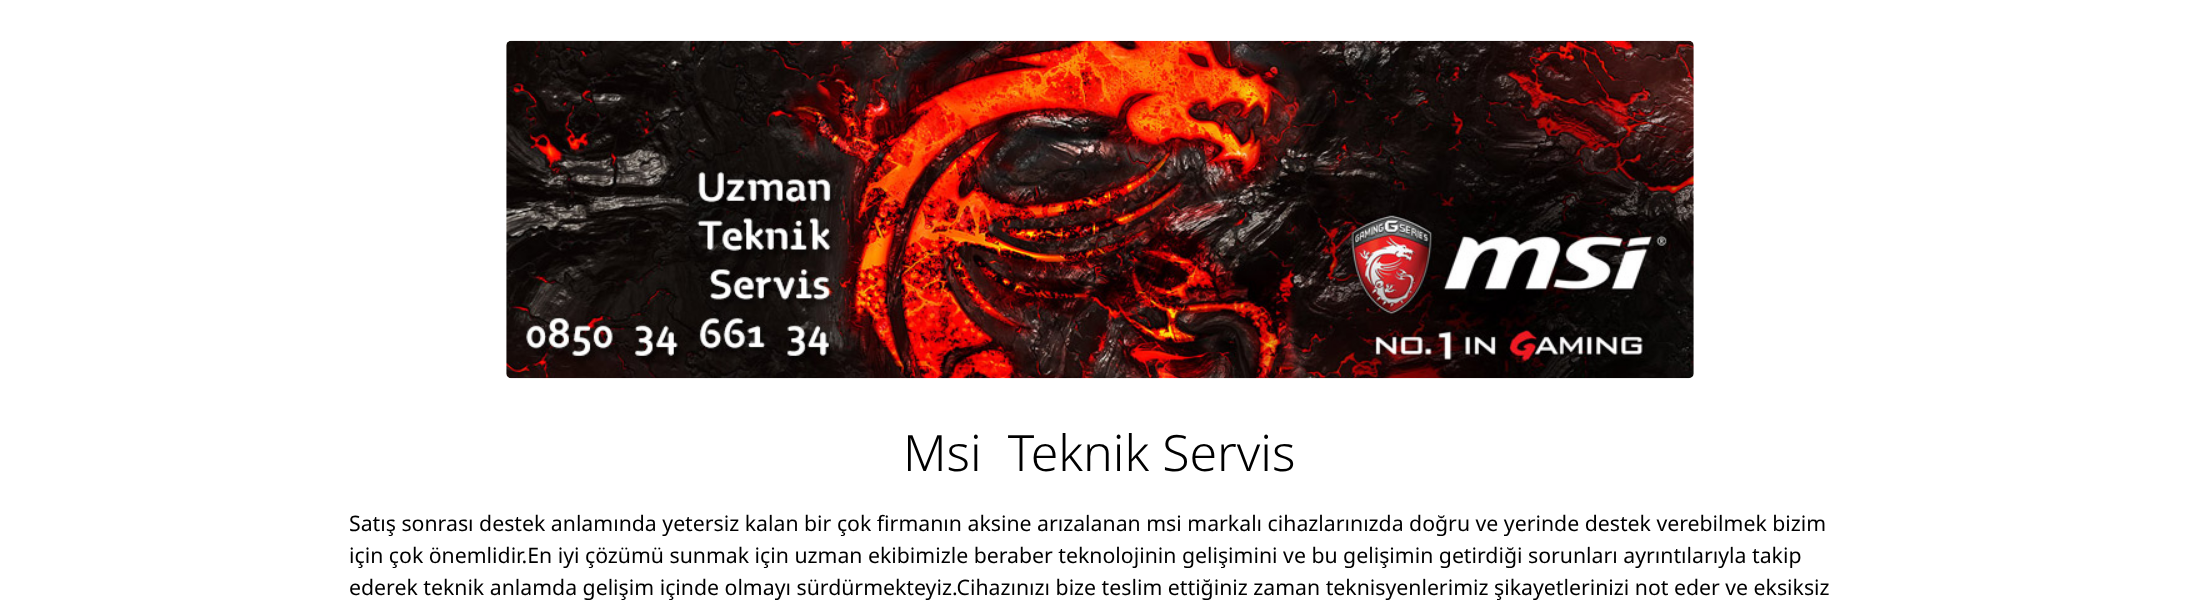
<!DOCTYPE html>
<meta charset="utf-8">
<style>body { margin: 0 } canvas { display: block }</style>
<canvas id="canvas" width="2198" height="608"></canvas>
<script type="module">
  const canvas = document.getElementById("canvas");
  const g = canvas.getContext("2d");
  g.miterLimit = 4;
  g.fontKerning = "normal";
  function drawText(s, x, y, [font, color]) {
    g.font = font;
    g.fillStyle = color;
    g.fillText(s, x, y);
  }
  function fillBox(x, y, w, h, color) {
    g.fillStyle = color;
    g.fillRect(x, y, w, h);
  }
  async function drawPicture(src, x, y, w, h) {
    const img = new Image();
    img.src = src;
    await img.decode();
    g.drawImage(img, x, y, w, h);
  }

  const s1 = ["300 50px Noto Sans", "#000000"];
  const s2 = ["21.25px Noto Sans", "#000000"];

  fillBox(0, 0, 2198, 608, "#FFFFFF");
  await drawPicture("pic1.png", 506, 40, 1188, 339);
  drawText("Msi  Teknik Servis", 903, 471, s1);
  drawText("Satış sonrası destek anlamında yetersiz kalan bir çok firmanın aksine arızalanan msi markalı cihazlarınızda doğru ve yerinde destek verebilmek bizim", 349, 531, s2);
  drawText("için çok önemlidir.En iyi çözümü sunmak için uzman ekibimizle beraber teknolojinin gelişimini ve bu gelişimin getirdiği sorunları ayrıntılarıyla takip", 349, 563, s2);
  drawText("ederek teknik anlamda gelişim içinde olmayı sürdürmekteyiz.Cihazınızı bize teslim ettiğiniz zaman teknisyenlerimiz şikayetlerinizi not eder ve eksiksiz", 349, 595, s2);
</script>
